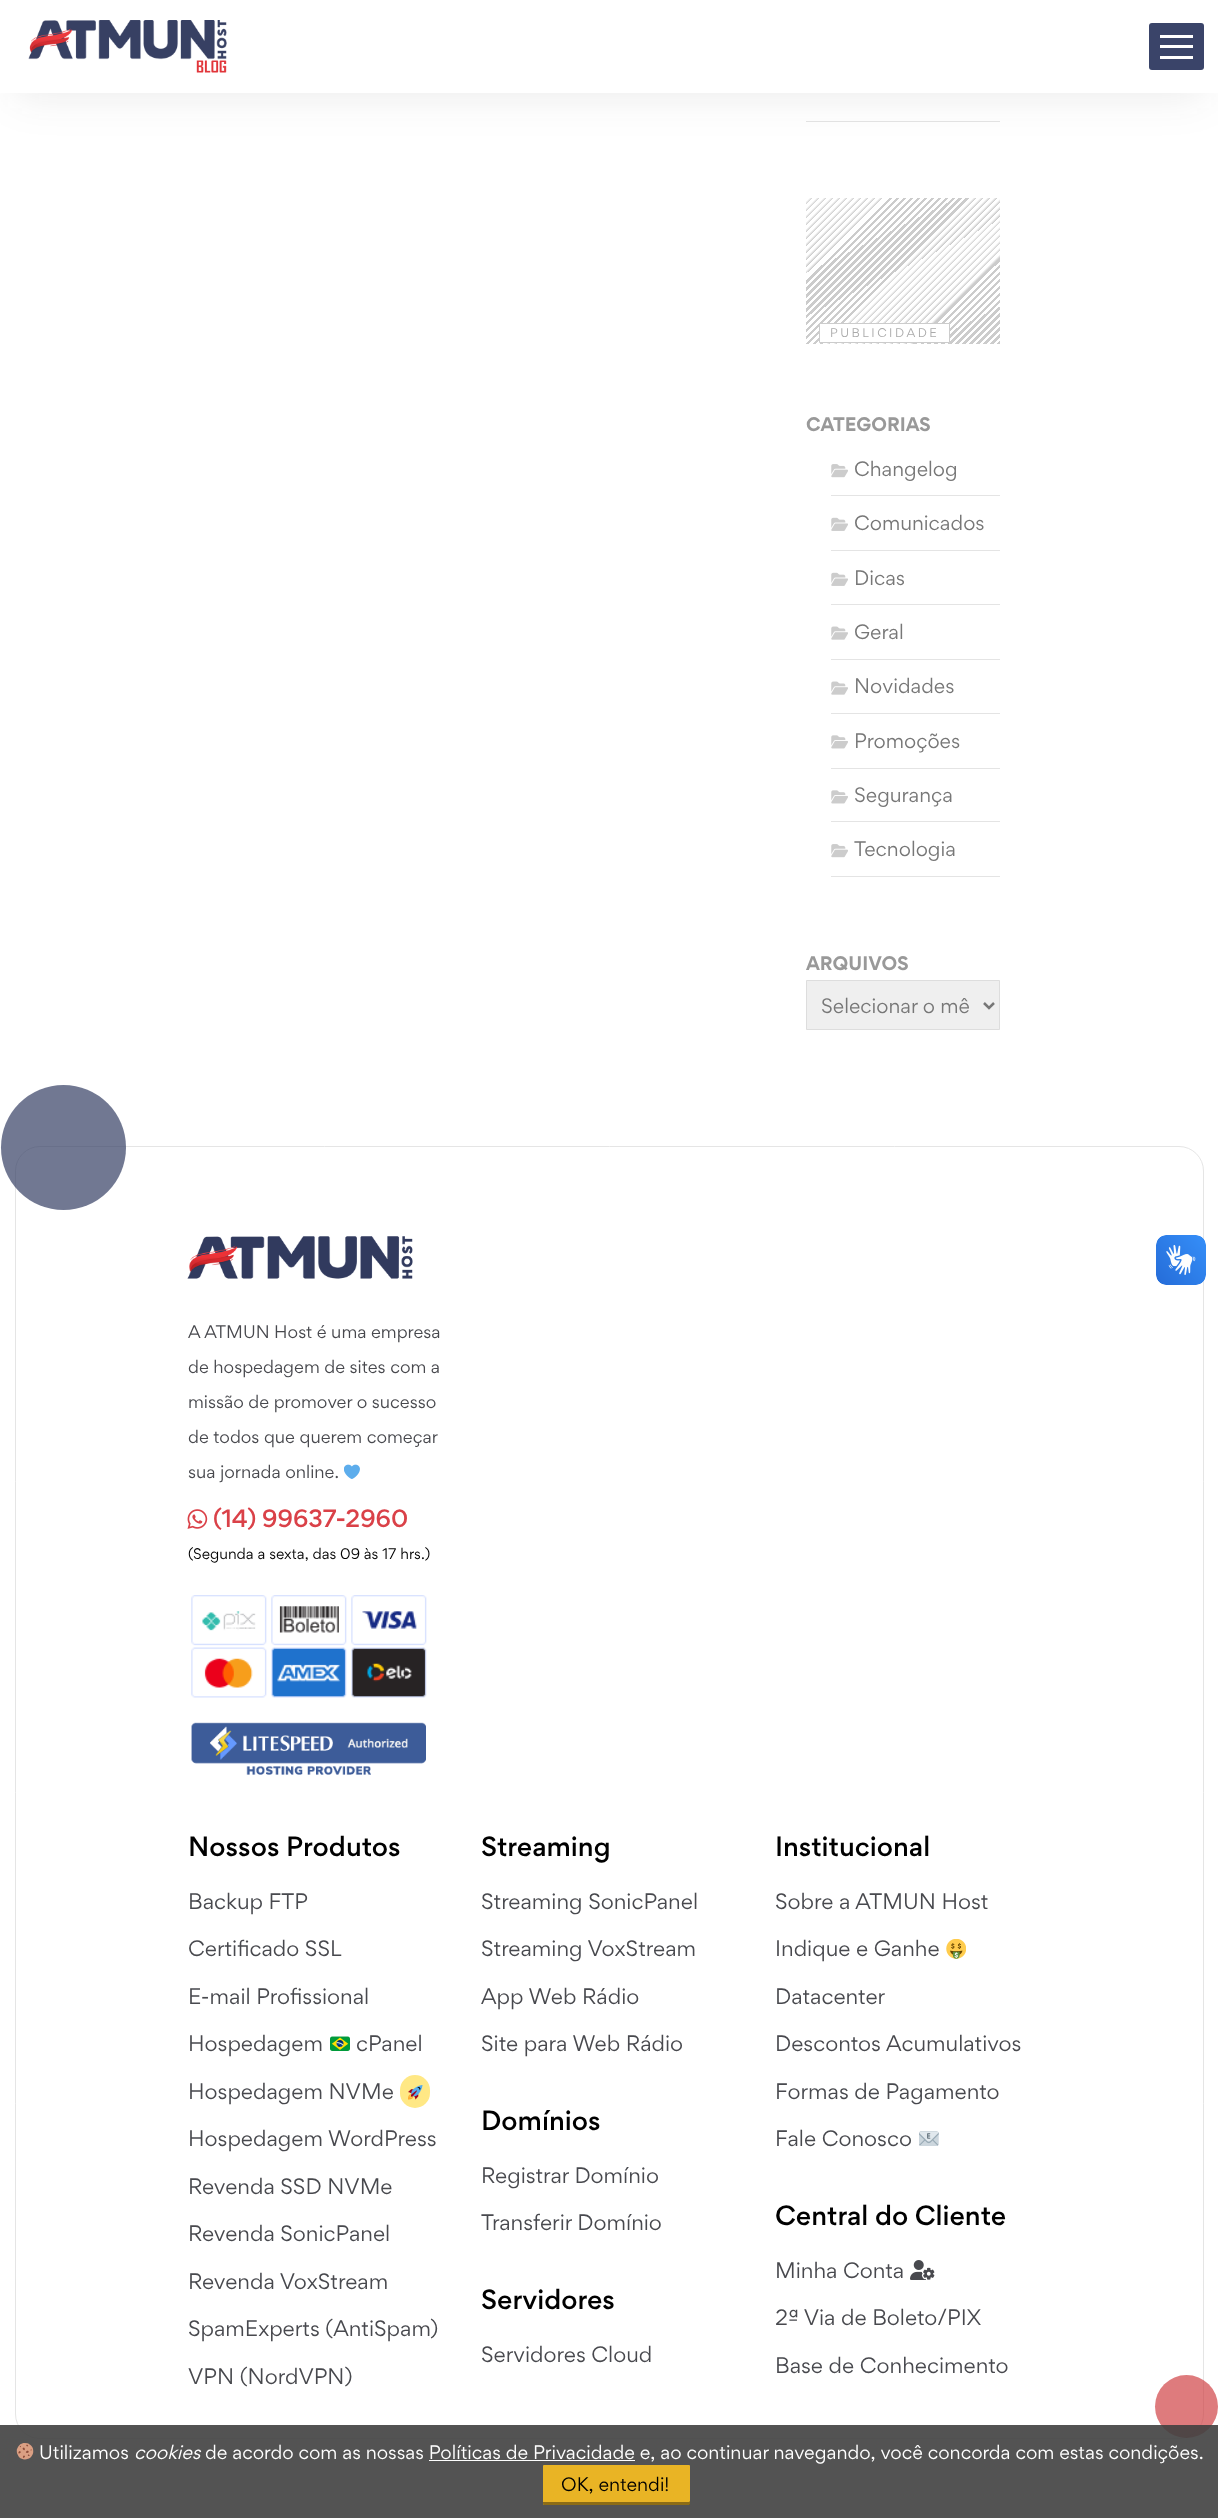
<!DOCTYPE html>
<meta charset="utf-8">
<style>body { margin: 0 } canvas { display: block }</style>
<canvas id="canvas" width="1218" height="2518"></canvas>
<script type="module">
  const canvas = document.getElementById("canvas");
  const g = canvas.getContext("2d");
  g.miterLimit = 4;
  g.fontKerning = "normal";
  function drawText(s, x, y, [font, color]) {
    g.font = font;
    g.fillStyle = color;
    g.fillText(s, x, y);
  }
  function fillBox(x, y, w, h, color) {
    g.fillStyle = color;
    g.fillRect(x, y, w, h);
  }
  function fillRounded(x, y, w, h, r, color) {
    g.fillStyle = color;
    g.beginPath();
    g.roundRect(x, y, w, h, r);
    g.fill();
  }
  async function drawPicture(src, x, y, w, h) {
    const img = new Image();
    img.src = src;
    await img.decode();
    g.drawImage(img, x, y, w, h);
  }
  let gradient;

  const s1 = ["11.25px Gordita", "#AAAAAA"];
  const s2 = ["bold 17.5px Gordita", "#999999"];
  const s3 = ["18.75px Gordita", "#777777"];
  const s4 = ["16.25px Gordita", "#48494E"];
  const s5 = ["500 22.5px Gordita", "#DA4148"];
  const s6 = ["13.75px Gordita", "#000000"];
  const s7 = ["500 25px Gordita", "#000000"];
  const s8 = ["20px Gordita", "#48494E"];
  const s9 = ["17.5px Gordita", "#FFFFFF"];
  const s10 = ["italic 17.5px Gordita", "#FFFFFF"];
  const s11 = ["17.5px Gordita", "#000000"];

  fillBox(0, 0, 1218, 2518, "#FFFFFF");
  fillBox(806, 121, 194, 1, "#E4E4E4");
  g.save();
  g.beginPath();
  g.moveTo(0, 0);
  g.lineTo(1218, 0);
  g.lineTo(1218, 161);
  g.lineTo(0, 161);
  g.closePath();
  g.moveTo(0, 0);
  g.lineTo(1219, 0);
  g.lineTo(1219, 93);
  g.lineTo(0, 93);
  g.closePath();
  g.clip("evenodd");
  g.fillStyle = "rgba(35, 35, 35, 0.1)";
  g.filter = "blur(22px)";
  g.beginPath();
  g.rect(15, 31, 1189, 63);
  g.fill();
  g.filter = "none";
  g.restore();
  fillBox(13, 92, 1193, 1, "rgba(255, 255, 255, 0.97)");
  await drawPicture("pic1.png", 28, 20, 199, 53);
  fillRounded(1149, 23, 55, 47, 3, "#3A4469");
  fillBox(1160, 35, 33, 3, "#FFFFFF");
  fillBox(1160, 45, 33, 3, "#FFFFFF");
  fillBox(1160, 56, 33, 3, "#FFFFFF");
  gradient = g.createLinearGradient(988, 356, 815, 182);
  gradient.addColorStop(0, "#CCCCCC");
  gradient.addColorStop(0.01, "#CCCCCC");
  gradient.addColorStop(0.01, "#FFFFFF");
  gradient.addColorStop(0.02, "#FFFFFF");
  gradient.addColorStop(0.02, "#CCCCCC");
  gradient.addColorStop(0.03, "#CCCCCC");
  gradient.addColorStop(0.03, "#FFFFFF");
  gradient.addColorStop(0.04, "#FFFFFF");
  gradient.addColorStop(0.04, "#CCCCCC");
  gradient.addColorStop(0.05, "#CCCCCC");
  gradient.addColorStop(0.05, "#FFFFFF");
  gradient.addColorStop(0.06, "#FFFFFF");
  gradient.addColorStop(0.06, "#CCCCCC");
  gradient.addColorStop(0.07, "#CCCCCC");
  gradient.addColorStop(0.07, "#FFFFFF");
  gradient.addColorStop(0.08, "#FFFFFF");
  gradient.addColorStop(0.08, "#CCCCCC");
  gradient.addColorStop(0.09, "#CCCCCC");
  gradient.addColorStop(0.09, "#FFFFFF");
  gradient.addColorStop(0.1, "#FFFFFF");
  gradient.addColorStop(0.1, "#CCCCCC");
  gradient.addColorStop(0.11, "#CCCCCC");
  gradient.addColorStop(0.11, "#FFFFFF");
  gradient.addColorStop(0.12, "#FFFFFF");
  gradient.addColorStop(0.12, "#CCCCCC");
  gradient.addColorStop(0.13, "#CCCCCC");
  gradient.addColorStop(0.13, "#FFFFFF");
  gradient.addColorStop(0.14, "#FFFFFF");
  gradient.addColorStop(0.14, "#CCCCCC");
  gradient.addColorStop(0.15, "#CCCCCC");
  gradient.addColorStop(0.15, "#FFFFFF");
  gradient.addColorStop(0.16, "#FFFFFF");
  gradient.addColorStop(0.16, "#CCCCCC");
  gradient.addColorStop(0.17, "#CCCCCC");
  gradient.addColorStop(0.17, "#FFFFFF");
  gradient.addColorStop(0.18, "#FFFFFF");
  gradient.addColorStop(0.18, "#CCCCCC");
  gradient.addColorStop(0.19, "#CCCCCC");
  gradient.addColorStop(0.19, "#FFFFFF");
  gradient.addColorStop(0.2, "#FFFFFF");
  gradient.addColorStop(0.2, "#CCCCCC");
  gradient.addColorStop(0.21, "#CCCCCC");
  gradient.addColorStop(0.21, "#FFFFFF");
  gradient.addColorStop(0.22, "#FFFFFF");
  gradient.addColorStop(0.22, "#CCCCCC");
  gradient.addColorStop(0.23, "#CCCCCC");
  gradient.addColorStop(0.23, "#FFFFFF");
  gradient.addColorStop(0.24, "#FFFFFF");
  gradient.addColorStop(0.24, "#CCCCCC");
  gradient.addColorStop(0.25, "#CCCCCC");
  gradient.addColorStop(0.26, "#FFFFFF");
  gradient.addColorStop(0.27, "#FFFFFF");
  gradient.addColorStop(0.27, "#CCCCCC");
  gradient.addColorStop(0.27, "#CCCCCC");
  gradient.addColorStop(0.28, "#FFFFFF");
  gradient.addColorStop(0.29, "#FFFFFF");
  gradient.addColorStop(0.29, "#CCCCCC");
  gradient.addColorStop(0.29, "#CCCCCC");
  gradient.addColorStop(0.3, "#FFFFFF");
  gradient.addColorStop(0.31, "#FFFFFF");
  gradient.addColorStop(0.31, "#CCCCCC");
  gradient.addColorStop(0.31, "#CCCCCC");
  gradient.addColorStop(0.32, "#FFFFFF");
  gradient.addColorStop(0.33, "#FFFFFF");
  gradient.addColorStop(0.33, "#CCCCCC");
  gradient.addColorStop(0.33, "#CCCCCC");
  gradient.addColorStop(0.34, "#FFFFFF");
  gradient.addColorStop(0.35, "#FFFFFF");
  gradient.addColorStop(0.35, "#CCCCCC");
  gradient.addColorStop(0.35, "#CCCCCC");
  gradient.addColorStop(0.36, "#FFFFFF");
  gradient.addColorStop(0.37, "#FFFFFF");
  gradient.addColorStop(0.37, "#CCCCCC");
  gradient.addColorStop(0.37, "#CCCCCC");
  gradient.addColorStop(0.38, "#FFFFFF");
  gradient.addColorStop(0.39, "#FFFFFF");
  gradient.addColorStop(0.39, "#CCCCCC");
  gradient.addColorStop(0.39, "#CCCCCC");
  gradient.addColorStop(0.4, "#FFFFFF");
  gradient.addColorStop(0.41, "#FFFFFF");
  gradient.addColorStop(0.41, "#CCCCCC");
  gradient.addColorStop(0.41, "#CCCCCC");
  gradient.addColorStop(0.42, "#FFFFFF");
  gradient.addColorStop(0.43, "#FFFFFF");
  gradient.addColorStop(0.43, "#CCCCCC");
  gradient.addColorStop(0.43, "#CCCCCC");
  gradient.addColorStop(0.44, "#FFFFFF");
  gradient.addColorStop(0.45, "#FFFFFF");
  gradient.addColorStop(0.45, "#CCCCCC");
  gradient.addColorStop(0.45, "#CCCCCC");
  gradient.addColorStop(0.46, "#FFFFFF");
  gradient.addColorStop(0.47, "#FFFFFF");
  gradient.addColorStop(0.47, "#CCCCCC");
  gradient.addColorStop(0.47, "#CCCCCC");
  gradient.addColorStop(0.48, "#FFFFFF");
  gradient.addColorStop(0.49, "#FFFFFF");
  gradient.addColorStop(0.49, "#CCCCCC");
  gradient.addColorStop(0.49, "#CCCCCC");
  gradient.addColorStop(0.5, "#FFFFFF");
  gradient.addColorStop(0.51, "#FFFFFF");
  gradient.addColorStop(0.51, "#CCCCCC");
  gradient.addColorStop(0.52, "#CCCCCC");
  gradient.addColorStop(0.52, "#FFFFFF");
  gradient.addColorStop(0.53, "#FFFFFF");
  gradient.addColorStop(0.53, "#CCCCCC");
  gradient.addColorStop(0.54, "#CCCCCC");
  gradient.addColorStop(0.54, "#FFFFFF");
  gradient.addColorStop(0.55, "#FFFFFF");
  gradient.addColorStop(0.55, "#CCCCCC");
  gradient.addColorStop(0.56, "#CCCCCC");
  gradient.addColorStop(0.56, "#FFFFFF");
  gradient.addColorStop(0.57, "#FFFFFF");
  gradient.addColorStop(0.57, "#CCCCCC");
  gradient.addColorStop(0.58, "#CCCCCC");
  gradient.addColorStop(0.58, "#FFFFFF");
  gradient.addColorStop(0.59, "#FFFFFF");
  gradient.addColorStop(0.59, "#CCCCCC");
  gradient.addColorStop(0.6, "#CCCCCC");
  gradient.addColorStop(0.6, "#FFFFFF");
  gradient.addColorStop(0.61, "#FFFFFF");
  gradient.addColorStop(0.61, "#CCCCCC");
  gradient.addColorStop(0.62, "#CCCCCC");
  gradient.addColorStop(0.62, "#FFFFFF");
  gradient.addColorStop(0.63, "#FFFFFF");
  gradient.addColorStop(0.63, "#CCCCCC");
  gradient.addColorStop(0.64, "#CCCCCC");
  gradient.addColorStop(0.64, "#FFFFFF");
  gradient.addColorStop(0.65, "#FFFFFF");
  gradient.addColorStop(0.65, "#CCCCCC");
  gradient.addColorStop(0.66, "#CCCCCC");
  gradient.addColorStop(0.66, "#FFFFFF");
  gradient.addColorStop(0.67, "#FFFFFF");
  gradient.addColorStop(0.67, "#CCCCCC");
  gradient.addColorStop(0.68, "#CCCCCC");
  gradient.addColorStop(0.68, "#FFFFFF");
  gradient.addColorStop(0.69, "#FFFFFF");
  gradient.addColorStop(0.69, "#CCCCCC");
  gradient.addColorStop(0.7, "#CCCCCC");
  gradient.addColorStop(0.7, "#FFFFFF");
  gradient.addColorStop(0.71, "#FFFFFF");
  gradient.addColorStop(0.71, "#CCCCCC");
  gradient.addColorStop(0.72, "#CCCCCC");
  gradient.addColorStop(0.72, "#FFFFFF");
  gradient.addColorStop(0.73, "#FFFFFF");
  gradient.addColorStop(0.73, "#CCCCCC");
  gradient.addColorStop(0.74, "#CCCCCC");
  gradient.addColorStop(0.74, "#FFFFFF");
  gradient.addColorStop(0.76, "#FFFFFF");
  gradient.addColorStop(0.76, "#CCCCCC");
  gradient.addColorStop(0.76, "#CCCCCC");
  gradient.addColorStop(0.77, "#FFFFFF");
  gradient.addColorStop(0.78, "#FFFFFF");
  gradient.addColorStop(0.78, "#CCCCCC");
  gradient.addColorStop(0.78, "#CCCCCC");
  gradient.addColorStop(0.79, "#FFFFFF");
  gradient.addColorStop(0.8, "#FFFFFF");
  gradient.addColorStop(0.8, "#CCCCCC");
  gradient.addColorStop(0.8, "#CCCCCC");
  gradient.addColorStop(0.81, "#FFFFFF");
  gradient.addColorStop(0.82, "#FFFFFF");
  gradient.addColorStop(0.82, "#CCCCCC");
  gradient.addColorStop(0.82, "#CCCCCC");
  gradient.addColorStop(0.83, "#FFFFFF");
  gradient.addColorStop(0.84, "#FFFFFF");
  gradient.addColorStop(0.84, "#CCCCCC");
  gradient.addColorStop(0.84, "#CCCCCC");
  gradient.addColorStop(0.85, "#FFFFFF");
  gradient.addColorStop(0.86, "#FFFFFF");
  gradient.addColorStop(0.86, "#CCCCCC");
  gradient.addColorStop(0.86, "#CCCCCC");
  gradient.addColorStop(0.87, "#FFFFFF");
  gradient.addColorStop(0.88, "#FFFFFF");
  gradient.addColorStop(0.88, "#CCCCCC");
  gradient.addColorStop(0.88, "#CCCCCC");
  gradient.addColorStop(0.89, "#FFFFFF");
  gradient.addColorStop(0.9, "#FFFFFF");
  gradient.addColorStop(0.9, "#CCCCCC");
  gradient.addColorStop(0.9, "#CCCCCC");
  gradient.addColorStop(0.91, "#FFFFFF");
  gradient.addColorStop(0.92, "#FFFFFF");
  gradient.addColorStop(0.92, "#CCCCCC");
  gradient.addColorStop(0.92, "#CCCCCC");
  gradient.addColorStop(0.93, "#FFFFFF");
  gradient.addColorStop(0.94, "#FFFFFF");
  gradient.addColorStop(0.94, "#CCCCCC");
  gradient.addColorStop(0.94, "#CCCCCC");
  gradient.addColorStop(0.95, "#FFFFFF");
  gradient.addColorStop(0.96, "#FFFFFF");
  gradient.addColorStop(0.96, "#CCCCCC");
  gradient.addColorStop(0.96, "#CCCCCC");
  gradient.addColorStop(0.97, "#FFFFFF");
  gradient.addColorStop(0.98, "#FFFFFF");
  gradient.addColorStop(0.98, "#CCCCCC");
  gradient.addColorStop(0.98, "#CCCCCC");
  gradient.addColorStop(0.99, "#FFFFFF");
  gradient.addColorStop(1, "#FFFFFF");
  g.fillStyle = gradient;
  g.fillRect(806, 198, 194, 146);
  g.fillStyle = "#FFFFFF";
  g.beginPath();
  g.rect(819.5, 323.5, 130, 19);
  g.fill();
  g.strokeStyle = "#CCCCCC";
  g.stroke();
  g.letterSpacing = "2.5px";
  drawText("PUBLICIDADE", 830, 337, s1);
  g.letterSpacing = "0px";
  drawText("CATEGORIAS", 806, 431, s2);
  fillBox(831, 495, 169, 1, "#E4E4E4");
  await drawPicture("pic2.png", 831, 464, 17, 14);
  drawText("Changelog", 854, 476, s3);
  fillBox(831, 550, 169, 1, "#E4E4E4");
  await drawPicture("pic3.png", 831, 517, 17, 14);
  drawText("Comunicados", 854, 530, s3);
  fillBox(831, 604, 169, 1, "#E4E4E4");
  await drawPicture("pic3.png", 831, 572, 17, 14);
  drawText("Dicas", 854, 585, s3);
  fillBox(831, 659, 169, 1, "#E4E4E4");
  await drawPicture("pic4.png", 831, 626, 17, 14);
  drawText("Geral", 854, 639, s3);
  fillBox(831, 713, 169, 1, "#E4E4E4");
  await drawPicture("pic4.png", 831, 681, 17, 14);
  drawText("Novidades", 854, 693, s3);
  fillBox(831, 768, 169, 1, "#E4E4E4");
  await drawPicture("pic5.png", 831, 735, 17, 14);
  drawText("Promoções", 854, 748, s3);
  fillBox(831, 821, 169, 1, "#E4E4E4");
  await drawPicture("pic5.png", 831, 790, 17, 14);
  drawText("Segurança", 854, 802, s3);
  fillBox(831, 876, 169, 1, "#E4E4E4");
  await drawPicture("pic2.png", 831, 844, 17, 14);
  drawText("Tecnologia", 854, 856, s3);
  drawText("ARQUIVOS", 806, 970, s2);
  g.fillStyle = "#EFEFEF";
  g.beginPath();
  g.rect(806.5, 980.5, 193, 49);
  g.fill();
  g.strokeStyle = "#DDDDDD";
  g.stroke();
  g.beginPath();
  g.moveTo(984, 1003);
  g.lineTo(989, 1008);
  g.lineTo(994, 1003);
  g.strokeStyle = "#777777";
  g.lineWidth = 2.5;
  g.stroke();
  drawText("Selecionar o mê", 821, 1013, s3);
  g.beginPath();
  g.roundRect(15.5, 1146.5, 1188, 1292, 24.5);
  g.strokeStyle = "#E5E5E5";
  g.lineWidth = 1;
  g.stroke();
  await drawPicture("pic6.png", 1156, 1235, 50, 50);
  g.fillStyle = "rgba(52, 62, 100, 0.7)";
  g.beginPath();
  g.arc(63.5, 1147.5, 62.5, 0, Math.PI * 2);
  g.fill();
  await drawPicture("pic7.png", 187, 1236, 226, 43);
  drawText("A ATMUN Host é uma empresa", 188, 1338, s4);
  drawText("de hospedagem de sites com a", 188, 1373, s4);
  drawText("missão de promover o sucesso", 188, 1408, s4);
  drawText("de todos que querem começar", 188, 1443, s4);
  drawText("sua jornada online.", 188, 1478, s4);
  await drawPicture("pic8.png", 344, 1464, 16, 15);
  await drawPicture("pic9.png", 187, 1509, 21, 20);
  drawText("(14) 99637-2960", 213, 1527, s5);
  drawText("(Segunda a sexta, das 09 às 17 hrs.)", 188, 1559, s6);
  await drawPicture("pic10.png", 191, 1595, 236, 103);
  await drawPicture("pic11.png", 191, 1722, 235, 53);
  drawText("Nossos Produtos", 188, 1856, s7);
  drawText("Backup FTP", 188, 1909, s8);
  drawText("Certificado SSL", 188, 1956, s8);
  drawText("E-mail Profissional", 188, 2004, s8);
  drawText("Hospedagem", 188, 2051, s8);
  await drawPicture("pic12.png", 330, 2036, 20, 15);
  drawText("cPanel", 356, 2051, s8);
  drawText("Hospedagem NVMe", 188, 2099, s8);
  fillRounded(400, 2075, 30, 33, 15, "#FFE885");
  await drawPicture("pic13.png", 408, 2085, 15, 15);
  drawText("Hospedagem WordPress", 188, 2146, s8);
  drawText("Revenda SSD NVMe", 188, 2194, s8);
  drawText("Revenda SonicPanel", 188, 2241, s8);
  drawText("Revenda VoxStream", 188, 2289, s8);
  drawText("SpamExperts (AntiSpam)", 188, 2336, s8);
  drawText("VPN (NordVPN)", 188, 2384, s8);
  drawText("Streaming", 481, 1856, s7);
  drawText("Streaming SonicPanel", 481, 1909, s8);
  drawText("Streaming VoxStream", 481, 1956, s8);
  drawText("App Web Rádio", 481, 2004, s8);
  drawText("Site para Web Rádio", 481, 2051, s8);
  drawText("Domínios", 481, 2130, s7);
  drawText("Registrar Domínio", 481, 2183, s8);
  drawText("Transferir Domínio", 481, 2230, s8);
  drawText("Servidores", 481, 2309, s7);
  drawText("Servidores Cloud", 481, 2362, s8);
  drawText("Institucional", 775, 1856, s7);
  drawText("Sobre a ATMUN Host", 775, 1909, s8);
  drawText("Indique e Ganhe", 775, 1956, s8);
  await drawPicture("pic14.png", 946, 1939, 20, 20);
  drawText("Datacenter", 775, 2004, s8);
  drawText("Descontos Acumulativos", 775, 2051, s8);
  drawText("Formas de Pagamento", 775, 2099, s8);
  drawText("Fale Conosco", 775, 2146, s8);
  await drawPicture("pic15.png", 919, 2131, 20, 15);
  drawText("Central do Cliente", 775, 2225, s7);
  drawText("Minha Conta", 775, 2278, s8);
  await drawPicture("pic16.png", 910, 2260, 25, 20);
  drawText("2ª Via de Boleto/PIX", 775, 2325, s8);
  drawText("Base de Conhecimento", 775, 2373, s8);
  g.fillStyle = "rgba(204, 52, 56, 0.65)";
  g.beginPath();
  g.arc(1186.5, 2406.5, 31.5, 0, Math.PI * 2);
  g.fill();
  fillBox(0, 2425, 1218, 93, "rgba(64, 64, 64, 0.9)");
  await drawPicture("pic17.png", 16, 2443, 18, 17);
  drawText("Utilizamos", 39, 2459, s9);
  drawText("cookies", 134, 2459, s10);
  drawText("de acordo com as nossas Políticas de Privacidade e, ao continuar navegando, você concorda com estas condições.", 205, 2459, s9);
  fillBox(429, 2460, 206, 1, "#FFFFFF");
  fillRounded(543, 2465, 147, 40, 1, "#E9B425");
  g.fillStyle = "rgba(0, 0, 0, 0.4)";
  g.beginPath();
  g.moveTo(543, 2502);
  g.bezierCurveTo(543, 2503, 543, 2505, 544, 2505);
  g.lineTo(690, 2505);
  g.lineTo(690, 2501);
  g.lineTo(689, 2502);
  g.closePath();
  g.fill();
  drawText("OK, entendi!", 561, 2491, s11);
</script>
